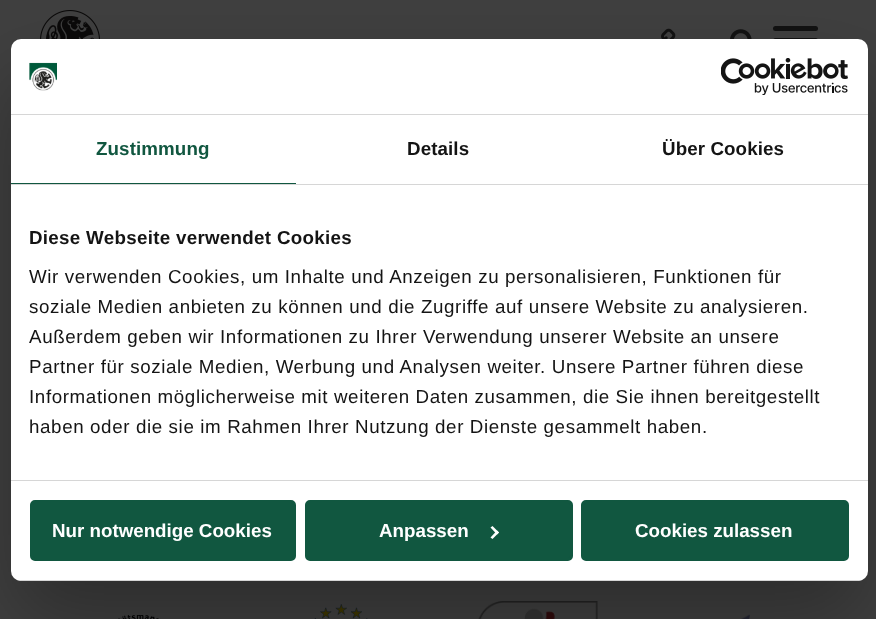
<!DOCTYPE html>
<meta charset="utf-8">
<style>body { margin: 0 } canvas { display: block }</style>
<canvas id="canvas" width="876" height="619"></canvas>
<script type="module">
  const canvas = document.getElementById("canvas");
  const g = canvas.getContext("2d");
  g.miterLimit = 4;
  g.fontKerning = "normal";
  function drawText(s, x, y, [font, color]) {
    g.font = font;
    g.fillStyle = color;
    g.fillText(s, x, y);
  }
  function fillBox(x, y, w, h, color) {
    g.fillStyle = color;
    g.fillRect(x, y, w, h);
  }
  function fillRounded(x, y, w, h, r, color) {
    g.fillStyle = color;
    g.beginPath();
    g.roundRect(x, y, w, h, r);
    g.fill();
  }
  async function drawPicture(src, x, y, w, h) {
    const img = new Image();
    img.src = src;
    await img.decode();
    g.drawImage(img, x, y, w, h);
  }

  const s1 = ["bold 18.75px Liberation Sans", "#115740"];
  const s2 = ["bold 18.75px Liberation Sans", "#141414"];
  const s3 = ["18.75px Liberation Sans", "#141414"];
  const s4 = ["bold 18.75px Liberation Sans", "#FFFFFF"];

  fillBox(0, 0, 876, 619, "#404040");
  await drawPicture("pic1.png", 40, 10, 60, 29);
  await drawPicture("pic2.png", 661, 28, 15, 11);
  await drawPicture("pic3.png", 730, 29, 22, 10);
  fillRounded(773, 26, 45, 5, 2.5, "#121212");
  fillRounded(773, 38, 45, 5, 2.5, "#121212");
  await drawPicture("pic4.png", 80, 601, 120, 18);
  await drawPicture("pic5.png", 314, 604, 54, 15);
  await drawPicture("pic6.png", 478, 601, 120, 18);
  await drawPicture("pic7.png", 741, 614, 9, 5);
  g.fillStyle = "rgba(0, 0, 0, 0.3)";
  g.filter = "blur(42.5px)";
  g.beginPath();
  g.roundRect(11, 79, 857, 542, 10);
  g.fill();
  g.filter = "none";
  fillRounded(11, 39, 857, 542, 10, "#FFFFFF");
  fillBox(11, 114, 857, 1, "#D6D6D6");
  await drawPicture("pic8.png", 29, 62, 28, 29);
  await drawPicture("pic9.png", 721, 58, 127, 37);
  fillBox(11, 184, 857, 1, "#D6D6D6");
  fillBox(11, 183, 285, 1, "#115740");
  g.letterSpacing = "0.1px";
  drawText("Zustimmung", 96, 155, s1);
  drawText("Details", 407, 155, s2);
  drawText("Über Cookies", 662, 155, s2);
  fillBox(11, 480, 857, 1, "#D6D6D6");
  g.letterSpacing = "0.3px";
  drawText("Diese Webseite verwendet Cookies", 29, 244, s2);
  g.letterSpacing = "0.62px";
  drawText("Wir verwenden Cookies, um Inhalte und Anzeigen zu personalisieren, Funktionen für", 29, 283, s3);
  drawText("soziale Medien anbieten zu können und die Zugriffe auf unsere Website zu analysieren.", 29, 313, s3);
  drawText("Außerdem geben wir Informationen zu Ihrer Verwendung unserer Website an unsere", 29, 343, s3);
  drawText("Partner für soziale Medien, Werbung und Analysen weiter. Unsere Partner führen diese", 29, 373, s3);
  drawText("Informationen möglicherweise mit weiteren Daten zusammen, die Sie ihnen bereitgestellt", 29, 403, s3);
  drawText("haben oder die sie im Rahmen Ihrer Nutzung der Dienste gesammelt haben.", 29, 433, s3);
  g.save();
  g.beginPath();
  g.roundRect(11, 39, 857, 542, 10);
  g.clip();
  fillBox(11, 580, 857, 1, "#D6D6D6");
  g.restore();
  g.fillStyle = "#115740";
  g.beginPath();
  g.roundRect(31.5, 501.5, 263, 58, 3.5);
  g.fill();
  g.strokeStyle = "#115740";
  g.lineWidth = 3;
  g.stroke();
  g.letterSpacing = "0px";
  drawText("Nur notwendige Cookies", 52, 537, s4);
  g.fillStyle = "#115740";
  g.beginPath();
  g.roundRect(306.5, 501.5, 265, 58, 3.5);
  g.fill();
  g.stroke();
  drawText("Anpassen", 379, 537, s4);
  g.beginPath();
  g.moveTo(492.5, 526);
  g.lineTo(499, 532.5);
  g.lineTo(497, 534.5);
  g.lineTo(490.5, 527.5);
  g.closePath();
  g.fill();
  g.beginPath();
  g.moveTo(497, 530.5);
  g.lineTo(499, 532.5);
  g.lineTo(492.5, 539);
  g.lineTo(490.5, 537.5);
  g.closePath();
  g.fill();
  g.fillStyle = "#115740";
  g.beginPath();
  g.roundRect(582.5, 501.5, 265, 58, 3.5);
  g.fill();
  g.stroke();
  drawText("Cookies zulassen", 635, 537, s4);
</script>
